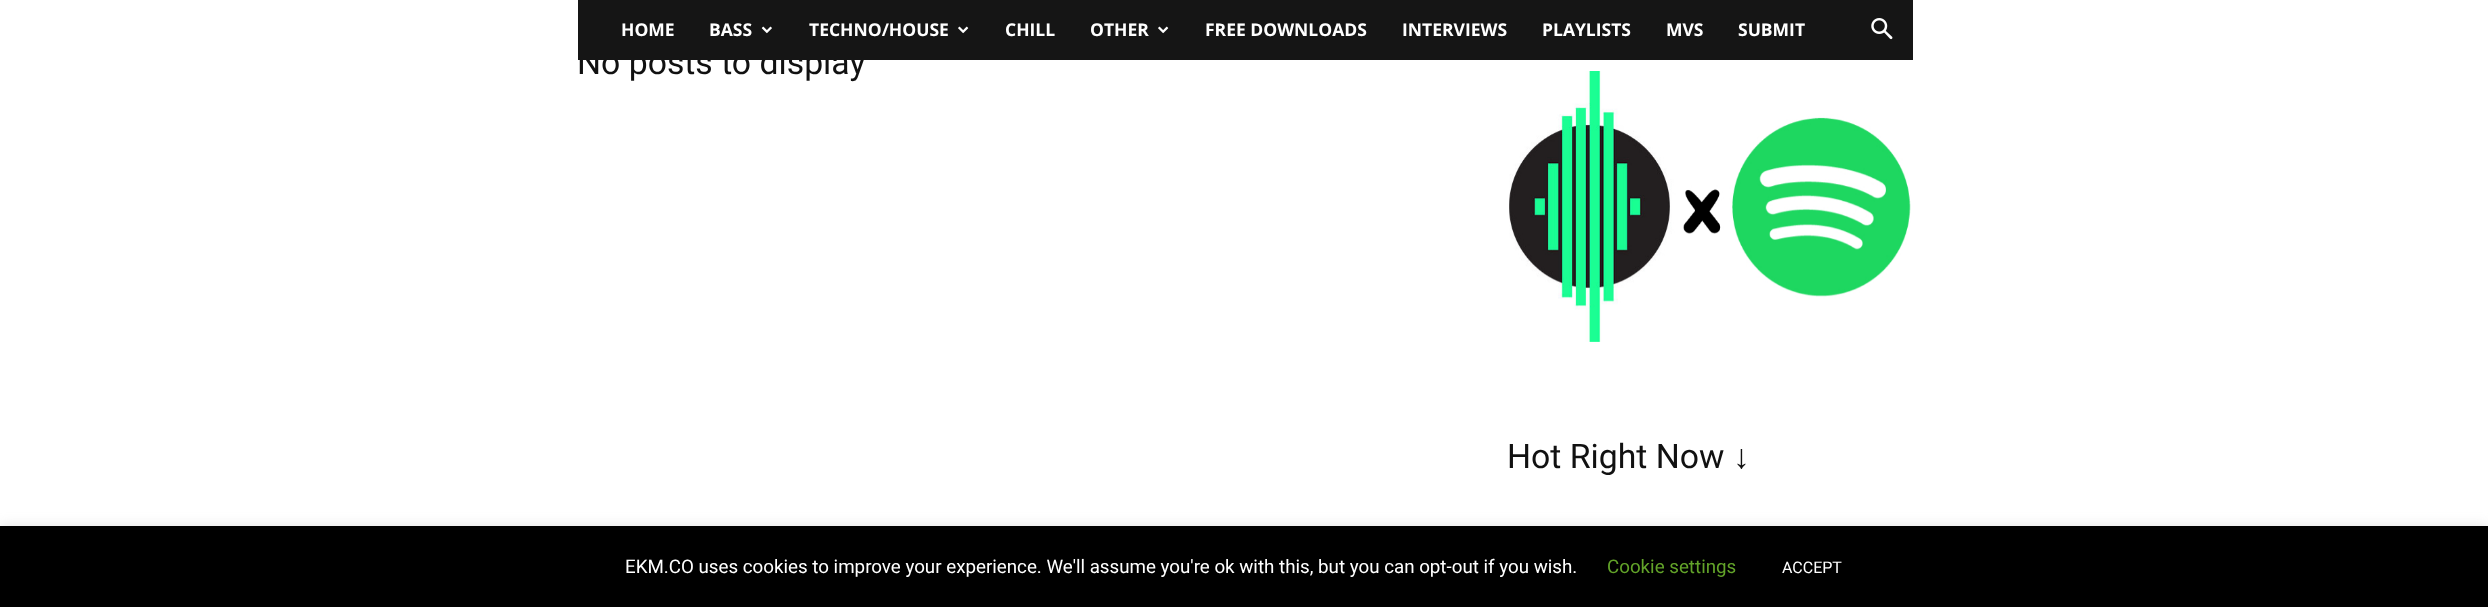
<!DOCTYPE html>
<meta charset="utf-8">
<style>body { margin: 0 } canvas { display: block }</style>
<canvas id="canvas" width="2488" height="607"></canvas>
<script type="module">
  const canvas = document.getElementById("canvas");
  const g = canvas.getContext("2d");
  g.miterLimit = 4;
  g.fontKerning = "normal";
  function drawText(s, x, y, [font, color]) {
    g.font = font;
    g.fillStyle = color;
    g.fillText(s, x, y);
  }
  function fillBox(x, y, w, h, color) {
    g.fillStyle = color;
    g.fillRect(x, y, w, h);
  }
  async function drawPicture(src, x, y, w, h) {
    const img = new Image();
    img.src = src;
    await img.decode();
    g.drawImage(img, x, y, w, h);
  }

  const s1 = ["33.75px Roboto", "#111111"];
  const s2 = ["bold 17.5px Open Sans", "#FFFFFF"];
  const s3 = ["33.75px Liberation Sans", "#111111"];
  const s4 = ["18.75px Roboto", "#FFFFFF"];
  const s5 = ["18.75px Roboto", "#62A329"];
  const s6 = ["16px Roboto", "#FFFFFF"];

  fillBox(0, 0, 2488, 607, "#FFFFFF");
  drawText("No posts to display", 577, 74, s1);
  fillBox(578, 0, 1335, 60, "#151515");
  drawText("HOME", 621, 36, s2);
  drawText("BASS", 709, 36, s2);
  await drawPicture("pic1.png", 761, 26, 11, 8);
  drawText("TECHNO/HOUSE", 809, 36, s2);
  await drawPicture("pic2.png", 958, 26, 11, 8);
  drawText("CHILL", 1005, 36, s2);
  drawText("OTHER", 1090, 36, s2);
  await drawPicture("pic2.png", 1158, 26, 11, 8);
  drawText("FREE DOWNLOADS", 1205, 36, s2);
  drawText("INTERVIEWS", 1402, 36, s2);
  drawText("PLAYLISTS", 1542, 36, s2);
  drawText("MVS", 1666, 36, s2);
  drawText("SUBMIT", 1738, 36, s2);
  await drawPicture("pic3.png", 1871, 18, 22, 22);
  await drawPicture("pic4.png", 1509, 71, 402, 271);
  drawText("Hot Right Now", 1507, 468, s1);
  drawText("↓", 1733, 468, s3);
  g.fillStyle = "rgba(172, 171, 171, 0.3)";
  g.filter = "blur(6px)";
  g.beginPath();
  g.rect(0, 525, 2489, 81);
  g.fill();
  g.filter = "none";
  fillBox(0, 526, 2488, 81, "#000000");
  drawText("EKM.CO uses cookies to improve your experience. We'll assume you're ok with this, but you can opt-out if you wish.", 625, 573, s4);
  drawText("Cookie settings", 1607, 573, s5);
  drawText("ACCEPT", 1782, 573, s6);
</script>
